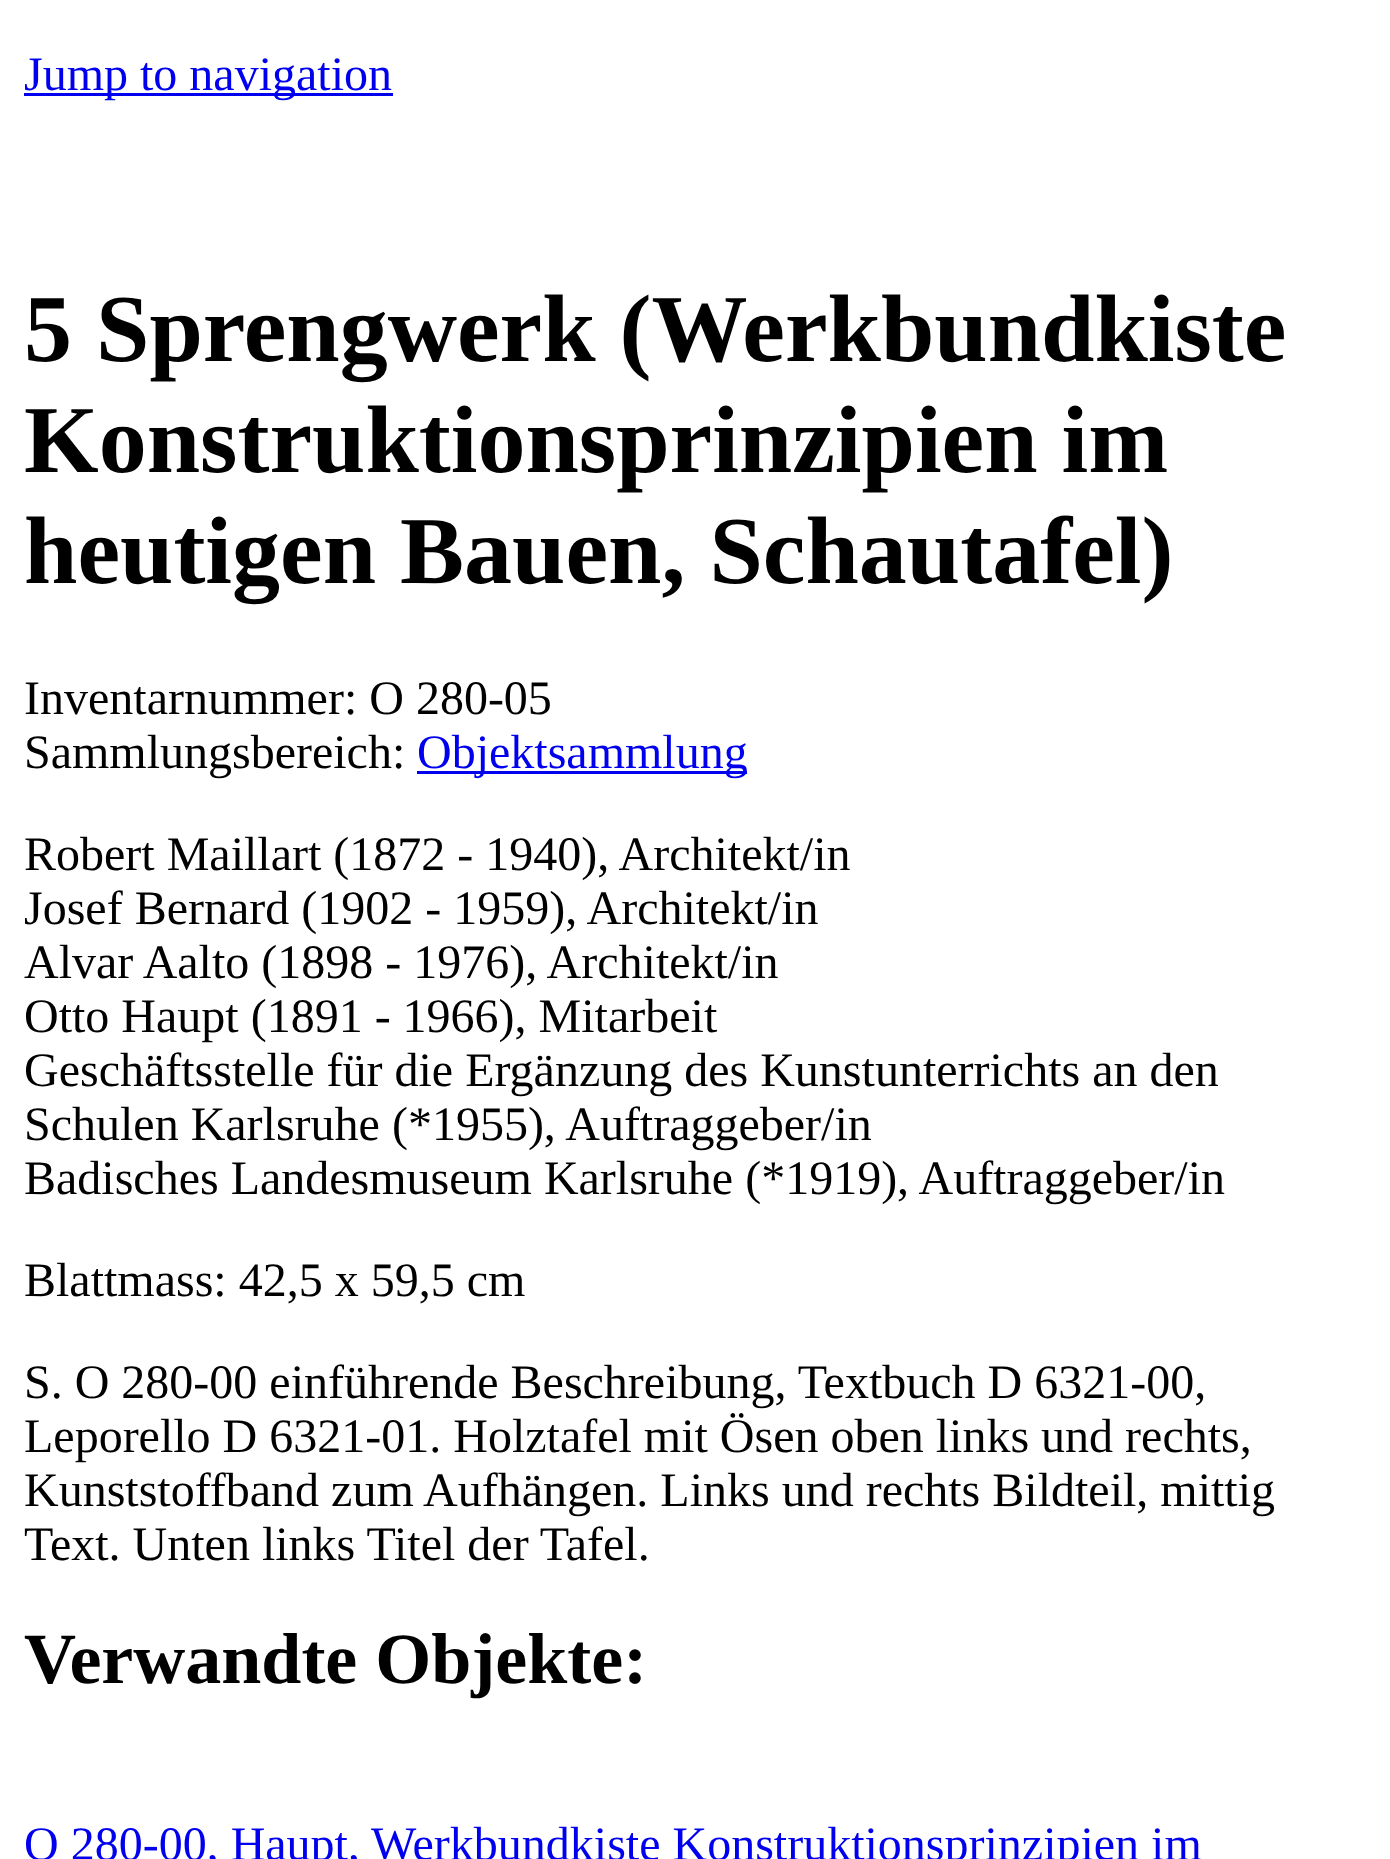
<!DOCTYPE html>
<meta charset="utf-8">
<style>body { margin: 0 } canvas { display: block }</style>
<canvas id="canvas" width="1390" height="1859"></canvas>
<script type="module">
  const canvas = document.getElementById("canvas");
  const g = canvas.getContext("2d");
  g.miterLimit = 4;
  g.fontKerning = "normal";
  function drawText(s, x, y, [font, color]) {
    g.font = font;
    g.fillStyle = color;
    g.fillText(s, x, y);
  }
  function fillBox(x, y, w, h, color) {
    g.fillStyle = color;
    g.fillRect(x, y, w, h);
  }

  const s1 = ["48px Liberation Serif", "#0000EE"];
  const s2 = ["bold 96px Liberation Serif", "#000000"];
  const s3 = ["48px Liberation Serif", "#000000"];
  const s4 = ["bold 72px Liberation Serif", "#000000"];

  fillBox(0, 0, 1390, 1859, "#FFFFFF");
  fillBox(24, 93, 369, 3, "#0000EE");
  drawText("Jump to navigation", 24, 90, s1);
  drawText("5 Sprengwerk (Werkbundkiste", 24, 361, s2);
  drawText("Konstruktionsprinzipien im", 24, 472, s2);
  drawText("heutigen Bauen, Schautafel)", 24, 583, s2);
  drawText("Inventarnummer: O 280-05", 24, 714, s3);
  drawText("Sammlungsbereich:", 24, 768, s3);
  fillBox(417, 771, 330, 3, "#0000EE");
  drawText("Objektsammlung", 417, 768, s1);
  drawText("Robert Maillart (1872 - 1940), Architekt/in", 24, 870, s3);
  drawText("Josef Bernard (1902 - 1959), Architekt/in", 24, 924, s3);
  drawText("Alvar Aalto (1898 - 1976), Architekt/in", 24, 978, s3);
  drawText("Otto Haupt (1891 - 1966), Mitarbeit", 24, 1032, s3);
  drawText("Geschäftsstelle für die Ergänzung des Kunstunterrichts an den", 24, 1086, s3);
  drawText("Schulen Karlsruhe (*1955), Auftraggeber/in", 24, 1140, s3);
  drawText("Badisches Landesmuseum Karlsruhe (*1919), Auftraggeber/in", 24, 1194, s3);
  drawText("Blattmass: 42,5 x 59,5 cm", 24, 1296, s3);
  drawText("S. O 280-00 einführende Beschreibung, Textbuch D 6321-00,", 24, 1398, s3);
  drawText("Leporello D 6321-01. Holztafel mit Ösen oben links und rechts,", 24, 1452, s3);
  drawText("Kunststoffband zum Aufhängen. Links und rechts Bildteil, mittig", 24, 1506, s3);
  drawText("Text. Unten links Titel der Tafel.", 24, 1560, s3);
  drawText("Verwandte Objekte:", 24, 1683, s4);
  drawText("O 280-00, Haupt, Werkbundkiste Konstruktionsprinzipien im", 24, 1860, s1);
</script>
